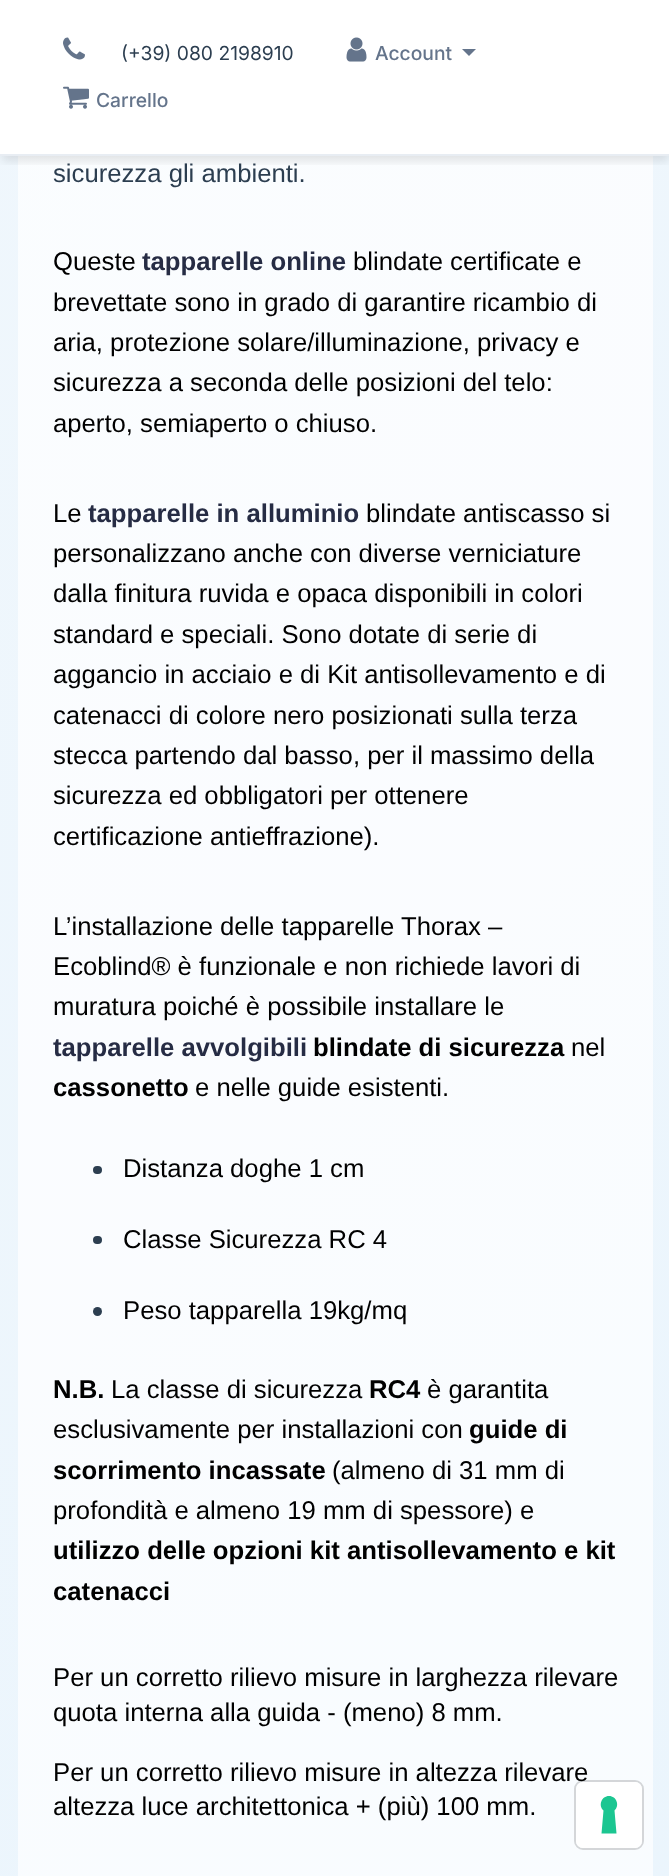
<!DOCTYPE html>
<meta charset="utf-8">
<style>body { margin: 0 } canvas { display: block }</style>
<canvas id="canvas" width="669" height="1876"></canvas>
<script type="module">
  const canvas = document.getElementById("canvas");
  const g = canvas.getContext("2d");
  g.miterLimit = 4;
  g.fontKerning = "normal";
  function drawText(s, x, y, [font, color]) {
    g.font = font;
    g.fillStyle = color;
    g.fillText(s, x, y);
  }
  function fillBox(x, y, w, h, color) {
    g.fillStyle = color;
    g.fillRect(x, y, w, h);
  }
  function fillRounded(x, y, w, h, r, color) {
    g.fillStyle = color;
    g.beginPath();
    g.roundRect(x, y, w, h, r);
    g.fill();
  }
  async function drawPicture(src, x, y, w, h) {
    const img = new Image();
    img.src = src;
    await img.decode();
    g.drawImage(img, x, y, w, h);
  }
  let gradient;

  const s1 = ["19.25px Inter", "#2C3E50"];
  const s2 = ["500 19.25px Inter", "#64748B"];
  const s3 = ["25.7px Liberation Sans", "#2C3E50"];
  const s4 = ["25.7px Liberation Sans", "#000000"];
  const s5 = ["bold 25.7px Liberation Sans", "#262C44"];
  const s6 = ["bold 25.7px Liberation Sans", "#000000"];

  fillBox(0, 0, 669, 1876, "#FFFFFF");
  gradient = g.createLinearGradient(-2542, -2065, 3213, 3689);
  gradient.addColorStop(0, "#F8FAFC");
  gradient.addColorStop(1, "#E3F2FD");
  g.fillStyle = gradient;
  g.fillRect(0, 0, 669, 1876);
  fillBox(18, 0, 635, 1876, "rgba(255, 255, 255, 0.7)");
  g.save();
  g.beginPath();
  g.rect(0, 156, 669, 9);
  g.clip();
  g.fillStyle = "rgba(0, 0, 0, 0.1)";
  g.filter = "blur(5px)";
  g.beginPath();
  g.rect(2, 9, 667, 152);
  g.fill();
  g.filter = "none";
  g.restore();
  fillBox(0, 0, 669, 154, "rgba(255, 255, 255, 0.95)");
  fillBox(0, 154, 669, 2, "#E8EDF3");
  await drawPicture("pic1.png", 63, 37, 22, 23);
  drawText("(+39) 080 2198910", 121, 60, s1);
  await drawPicture("pic2.png", 346, 37, 21, 25);
  drawText("Account", 375, 60, s2);
  g.beginPath();
  g.moveTo(462, 49);
  g.lineTo(476, 49);
  g.lineTo(469, 56);
  g.closePath();
  g.fill();
  await drawPicture("pic3.png", 63, 86, 26, 23);
  drawText("Carrello", 96, 107, s2);
  drawText("sicurezza gli ambienti.", 53, 182, s3);
  drawText("Queste", 53, 270, s4);
  drawText("tapparelle online", 142, 270, s5);
  drawText("blindate certificate e", 353, 270, s4);
  drawText("brevettate sono in grado di garantire ricambio di", 53, 311, s4);
  drawText("aria, protezione solare/illuminazione, privacy e", 53, 351, s4);
  drawText("sicurezza a seconda delle posizioni del telo:", 53, 391, s4);
  drawText("aperto, semiaperto o chiuso.", 53, 432, s4);
  drawText("Le", 53, 522, s4);
  drawText("tapparelle in alluminio", 88, 522, s5);
  drawText("blindate antiscasso si", 366, 522, s4);
  drawText("personalizzano anche con diverse verniciature", 53, 562, s4);
  drawText("dalla finitura ruvida e opaca disponibili in colori", 53, 602, s4);
  drawText("standard e speciali. Sono dotate di serie di", 53, 643, s4);
  drawText("aggancio in acciaio e di Kit antisollevamento e di", 53, 683, s4);
  drawText("catenacci di colore nero posizionati sulla terza", 53, 724, s4);
  drawText("stecca partendo dal basso, per il massimo della", 53, 764, s4);
  drawText("sicurezza ed obbligatori per ottenere", 53, 804, s4);
  drawText("certificazione antieffrazione).", 53, 845, s4);
  drawText("L’installazione delle tapparelle Thorax –", 53, 935, s4);
  drawText("Ecoblind® è funzionale e non richiede lavori di", 53, 975, s4);
  drawText("muratura poiché è possibile installare le", 53, 1015, s4);
  drawText("tapparelle avvolgibili", 53, 1056, s5);
  drawText("blindate di sicurezza", 313, 1056, s6);
  drawText("nel", 571, 1056, s4);
  drawText("cassonetto", 53, 1096, s6);
  drawText("e nelle guide esistenti.", 195, 1096, s4);
  fillRounded(93, 1166, 9, 8, 4, "#2C3E50");
  drawText("Distanza doghe 1 cm", 123, 1177, s4);
  fillRounded(93, 1236, 9, 8, 4, "#2C3E50");
  drawText("Classe Sicurezza RC 4", 123, 1248, s4);
  g.fillStyle = "#2C3E50";
  g.beginPath();
  g.arc(97.5, 1311.5, 4.5, 0, Math.PI * 2);
  g.fill();
  drawText("Peso tapparella 19kg/mq", 123, 1319, s4);
  drawText("N.B.", 53, 1398, s6);
  drawText("La classe di sicurezza", 111, 1398, s4);
  drawText("RC4", 369, 1398, s6);
  drawText("è garantita", 427, 1398, s4);
  drawText("esclusivamente per installazioni con", 53, 1438, s4);
  drawText("guide di", 469, 1438, s6);
  drawText("scorrimento incassate", 53, 1479, s6);
  drawText("(almeno di 31 mm di", 332, 1479, s4);
  drawText("profondità e almeno 19 mm di spessore) e", 53, 1519, s4);
  drawText("utilizzo delle opzioni kit antisollevamento e kit", 53, 1559, s6);
  drawText("catenacci", 53, 1600, s6);
  drawText("Per un corretto rilievo misure in larghezza rilevare", 53, 1686, s4);
  drawText("quota interna alla guida - (meno) 8 mm.", 53, 1721, s4);
  drawText("Per un corretto rilievo misure in altezza rilevare", 53, 1781, s4);
  drawText("altezza luce architettonica + (più) 100 mm.", 53, 1815, s4);
  g.beginPath();
  g.roundRect(575, 1781, 68, 68, 8);
  g.strokeStyle = "rgba(0, 0, 0, 0.15)";
  g.lineWidth = 2;
  g.stroke();
  fillRounded(576, 1782, 66, 66, 7, "#FFFFFF");
  g.fillStyle = "#1CC691";
  g.beginPath();
  g.moveTo(609, 1796);
  g.bezierCurveTo(616.5, 1796, 620, 1805.5, 614.5, 1810.5);
  g.lineTo(616.5, 1833.5);
  g.lineTo(601.5, 1833.5);
  g.lineTo(603.5, 1810.5);
  g.bezierCurveTo(598, 1805.5, 601.5, 1796, 609, 1796);
  g.closePath();
  g.fill("evenodd");
</script>
